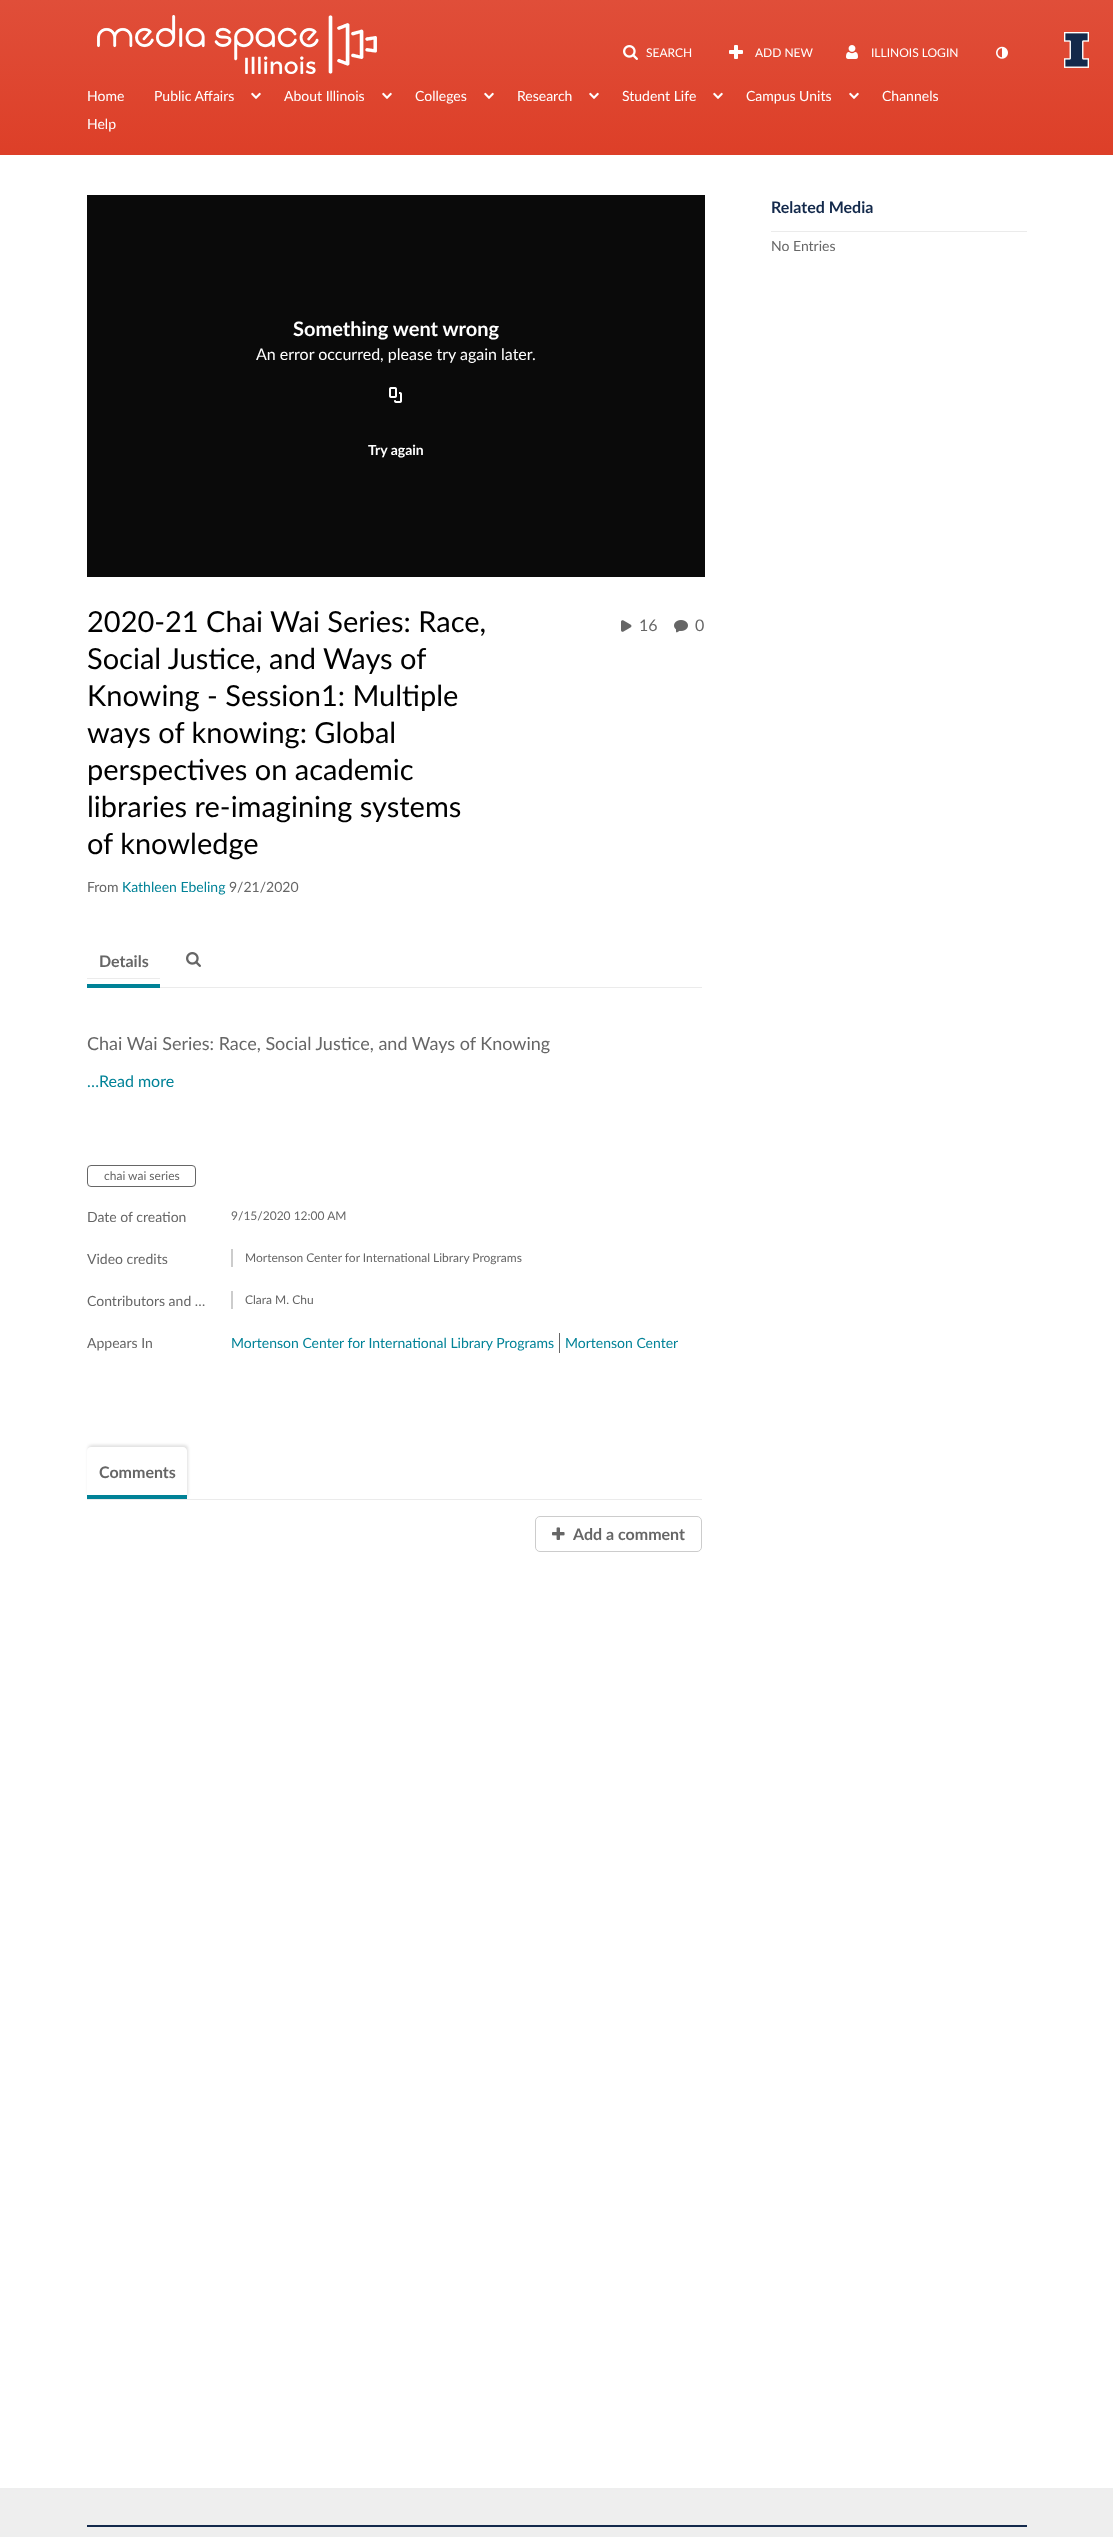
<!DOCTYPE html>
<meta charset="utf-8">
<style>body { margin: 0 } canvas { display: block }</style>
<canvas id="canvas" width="1113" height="2537"></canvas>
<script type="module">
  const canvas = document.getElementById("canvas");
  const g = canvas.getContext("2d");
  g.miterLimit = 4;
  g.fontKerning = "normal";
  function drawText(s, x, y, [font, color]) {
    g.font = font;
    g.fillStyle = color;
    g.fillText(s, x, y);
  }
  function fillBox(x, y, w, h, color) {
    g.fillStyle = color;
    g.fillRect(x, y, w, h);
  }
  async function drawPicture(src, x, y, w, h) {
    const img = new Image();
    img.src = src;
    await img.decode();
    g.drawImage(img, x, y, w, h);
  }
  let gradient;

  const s1 = ["12px Lato", "#FFFFFF"];
  const s2 = ["14px Lato", "#FFFFFF"];
  const s3 = ["bold 16px Lato", "#13294B"];
  const s4 = ["14px Lato", "#666666"];
  const s5 = ["bold 20px Lato", "#FFFFFF"];
  const s6 = ["16px Lato", "#FFFFFF"];
  const s7 = ["bold 14px Lato", "#FFFFFF"];
  const s8 = ["29px Lato", "#000000"];
  const s9 = ["14px Lato", "#008297"];
  const s10 = ["16px Lato", "#666666"];
  const s11 = ["bold 16px Lato", "#666666"];
  const s12 = ["18px Lato", "#666666"];
  const s13 = ["16px Lato", "#008297"];
  const s14 = ["12px Lato", "#666666"];

  fillBox(0, 0, 1113, 2537, "#FFFFFF");
  fillBox(0, 2488, 1113, 49, "#EEEEEE");
  gradient = g.createLinearGradient(557, 0, 557, 155);
  gradient.addColorStop(0, "#E04E39");
  gradient.addColorStop(1, "#DD3F28");
  g.fillStyle = gradient;
  g.fillRect(0, 0, 1113, 155);
  await drawPicture("pic1.png", 1064, 32, 25, 36);
  fillBox(87, 2525, 940, 2, "#13294B");
  await drawPicture("pic2.png", 97, 15, 280, 59);
  await drawPicture("pic3.png", 623, 45, 15, 15);
  drawText("SEARCH", 646, 57, s1);
  await drawPicture("pic4.png", 729, 45, 14, 14);
  drawText("ADD NEW", 755, 57, s1);
  await drawPicture("pic5.png", 846, 45, 12, 14);
  drawText("ILLINOIS LOGIN", 871, 57, s1);
  await drawPicture("pic6.png", 996, 46, 12, 13);
  drawText("Home", 87, 101, s2);
  drawText("Public Affairs", 154, 101, s2);
  await drawPicture("pic7.png", 251, 92, 10, 7);
  drawText("About Illinois", 284, 101, s2);
  await drawPicture("pic7.png", 382, 92, 10, 7);
  drawText("Colleges", 415, 101, s2);
  await drawPicture("pic7.png", 484, 92, 10, 7);
  drawText("Research", 517, 101, s2);
  await drawPicture("pic7.png", 589, 92, 10, 7);
  drawText("Student Life", 622, 101, s2);
  await drawPicture("pic7.png", 713, 92, 10, 7);
  drawText("Campus Units", 746, 101, s2);
  await drawPicture("pic7.png", 849, 92, 10, 7);
  drawText("Channels", 882, 101, s2);
  drawText("Help", 87, 129, s2);
  fillBox(771, 231, 256, 1, "#EBEBEB");
  drawText("Related Media", 771, 213, s3);
  drawText("No Entries", 771, 251, s4);
  fillBox(87, 195, 618, 382, "#0A0A0A");
  drawText("Something went wrong", 293, 336, s5);
  drawText("An error occurred, please try again later.", 256, 360, s6);
  await drawPicture("pic8.png", 389, 387, 13, 16);
  drawText("Try again", 368, 455, s7);
  drawText("2020-21 Chai Wai Series: Race,", 87, 632, s8);
  drawText("Social Justice, and Ways of", 87, 669, s8);
  drawText("Knowing - Session1: Multiple", 87, 706, s8);
  drawText("ways of knowing: Global", 87, 743, s8);
  drawText("perspectives on academic", 87, 780, s8);
  drawText("libraries re-imagining systems", 87, 817, s8);
  drawText("of knowledge", 87, 854, s8);
  drawText("From", 87, 892, s4);
  drawText("Kathleen Ebeling", 122, 892, s9);
  drawText("9/21/2020", 229, 892, s4);
  await drawPicture("pic9.png", 621, 620, 11, 12);
  drawText("16", 639, 631, s10);
  await drawPicture("pic10.png", 674, 620, 14, 13);
  drawText("0", 695, 631, s10);
  fillBox(160, 987, 542, 1, "#EBEBEB");
  fillBox(87, 978, 73, 1, "#EBEBEB");
  fillBox(87, 984, 73, 4, "#008297");
  drawText("Details", 99, 967, s11);
  await drawPicture("pic11.png", 186, 952, 15, 15);
  drawText("Chai Wai Series: Race, Social Justice, and Ways of Knowing", 87, 1050, s12);
  drawText("…Read more", 87, 1087, s13);
  g.beginPath();
  g.roundRect(87.5, 1165.5, 108, 21, 3.5);
  g.strokeStyle = "#666666";
  g.stroke();
  drawText("chai wai series", 104, 1180, s14);
  drawText("Date of creation", 87, 1222, s4);
  drawText("9/15/2020 12:00 AM", 231, 1220, s14);
  drawText("Video credits", 87, 1264, s4);
  fillBox(231, 1249, 2, 18, "#CCCCCC");
  drawText("Mortenson Center for International Library Programs", 245, 1262, s14);
  drawText("Contributors and …", 87, 1306, s4);
  fillBox(231, 1291, 2, 18, "#CCCCCC");
  drawText("Clara M. Chu", 245, 1304, s14);
  drawText("Appears In", 87, 1348, s4);
  fillBox(559, 1333, 1, 20, "#666666");
  drawText("Mortenson Center for International Library Programs", 231, 1348, s9);
  drawText("Mortenson Center", 565, 1348, s9);
  fillBox(87, 1499, 615, 1, "#EBEBEB");
  g.save();
  g.beginPath();
  g.moveTo(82, 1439);
  g.lineTo(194, 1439);
  g.lineTo(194, 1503);
  g.lineTo(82, 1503);
  g.closePath();
  g.moveTo(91, 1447);
  g.lineTo(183, 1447);
  g.bezierCurveTo(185, 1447, 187, 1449, 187, 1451);
  g.lineTo(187, 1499);
  g.lineTo(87, 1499);
  g.lineTo(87, 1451);
  g.bezierCurveTo(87, 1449, 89, 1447, 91, 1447);
  g.closePath();
  g.clip("evenodd");
  g.fillStyle = "rgba(0, 0, 0, 0.12)";
  g.filter = "blur(1.5px)";
  g.beginPath();
  g.roundRect(88, 1445, 100, 52, 4);
  g.fill();
  g.filter = "none";
  g.restore();
  fillBox(87, 1495, 100, 4, "#008297");
  drawText("Comments", 99, 1478, s11);
  g.beginPath();
  g.roundRect(535.5, 1516.5, 166, 35, 4.5);
  g.strokeStyle = "#CCCCCC";
  g.stroke();
  await drawPicture("pic12.png", 552, 1527, 13, 13);
  drawText("Add a comment", 573, 1540, s11);
</script>
